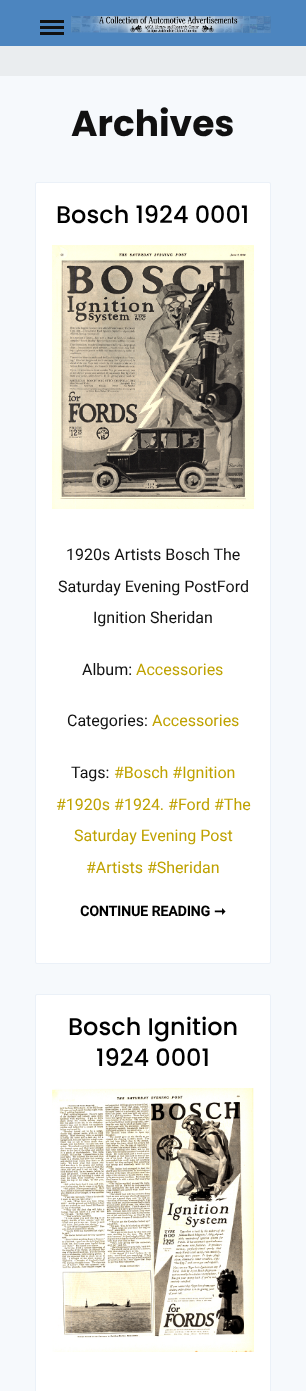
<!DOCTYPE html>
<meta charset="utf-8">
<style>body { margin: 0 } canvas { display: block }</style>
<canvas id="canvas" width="306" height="1391"></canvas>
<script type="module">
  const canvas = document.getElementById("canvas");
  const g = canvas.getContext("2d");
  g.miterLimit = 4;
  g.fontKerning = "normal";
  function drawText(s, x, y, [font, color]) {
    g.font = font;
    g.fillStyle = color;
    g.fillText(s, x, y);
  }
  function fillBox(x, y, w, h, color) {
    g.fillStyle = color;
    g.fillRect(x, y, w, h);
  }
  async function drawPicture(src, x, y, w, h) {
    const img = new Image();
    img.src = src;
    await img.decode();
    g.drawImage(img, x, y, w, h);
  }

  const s1 = ["bold 36px Poppins", "#111111"];
  const s2 = ["500 24px Poppins", "#000000"];
  const s3 = ["16px Roboto", "#111111"];
  const s4 = ["16px Roboto", "#BFA200"];
  const s5 = ["bold 14px Roboto", "#000000"];
  const s6 = ["bold 14px DejaVu Sans", "#000000"];

  fillBox(0, 0, 306, 1391, "#EAEDEF");
  fillBox(0, 0, 306, 46, "#4C85BF");
  fillBox(40, 20, 24, 3, "#111111");
  fillBox(40, 26, 24, 3, "#111111");
  fillBox(40, 32, 24, 3, "#111111");
  await drawPicture("pic1.png", 71, 16, 200, 17);
  fillBox(0, 76, 306, 1315, "#F6F9FC");
  drawText("Archives", 71, 136, s1);
  g.fillStyle = "#FFFFFF";
  g.beginPath();
  g.roundRect(35.5, 182.5, 235, 781, 1.5);
  g.fill();
  g.strokeStyle = "#EBF1F8";
  g.stroke();
  drawText("Bosch 1924 0001", 56, 223, s2);
  await drawPicture("pic2.png", 52, 245, 202, 264);
  drawText("1920s Artists Bosch The", 66, 560, s3);
  drawText("Saturday Evening PostFord", 58, 592, s3);
  drawText("Ignition Sheridan", 93, 623, s3);
  drawText("Album:", 82, 675, s3);
  drawText("Accessories", 136, 675, s4);
  drawText("Categories:", 67, 726, s3);
  drawText("Accessories", 152, 726, s4);
  drawText("Tags:", 71, 778, s3);
  drawText("#Bosch #Ignition", 114, 778, s4);
  drawText("#1920s #1924. #Ford #The", 56, 810, s4);
  drawText("Saturday Evening Post", 74, 841, s4);
  drawText("#Artists #Sheridan", 86, 873, s4);
  drawText("CONTINUE READING", 80, 916, s5);
  drawText("➞", 214, 916, s6);
  g.fillStyle = "#FFFFFF";
  g.beginPath();
  g.roundRect(35.5, 994.5, 235, 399, 1.5);
  g.fill();
  g.stroke();
  drawText("Bosch Ignition", 68, 1035, s2);
  drawText("1924 0001", 96, 1066, s2);
  await drawPicture("pic3.png", 52, 1088, 202, 264);
</script>
